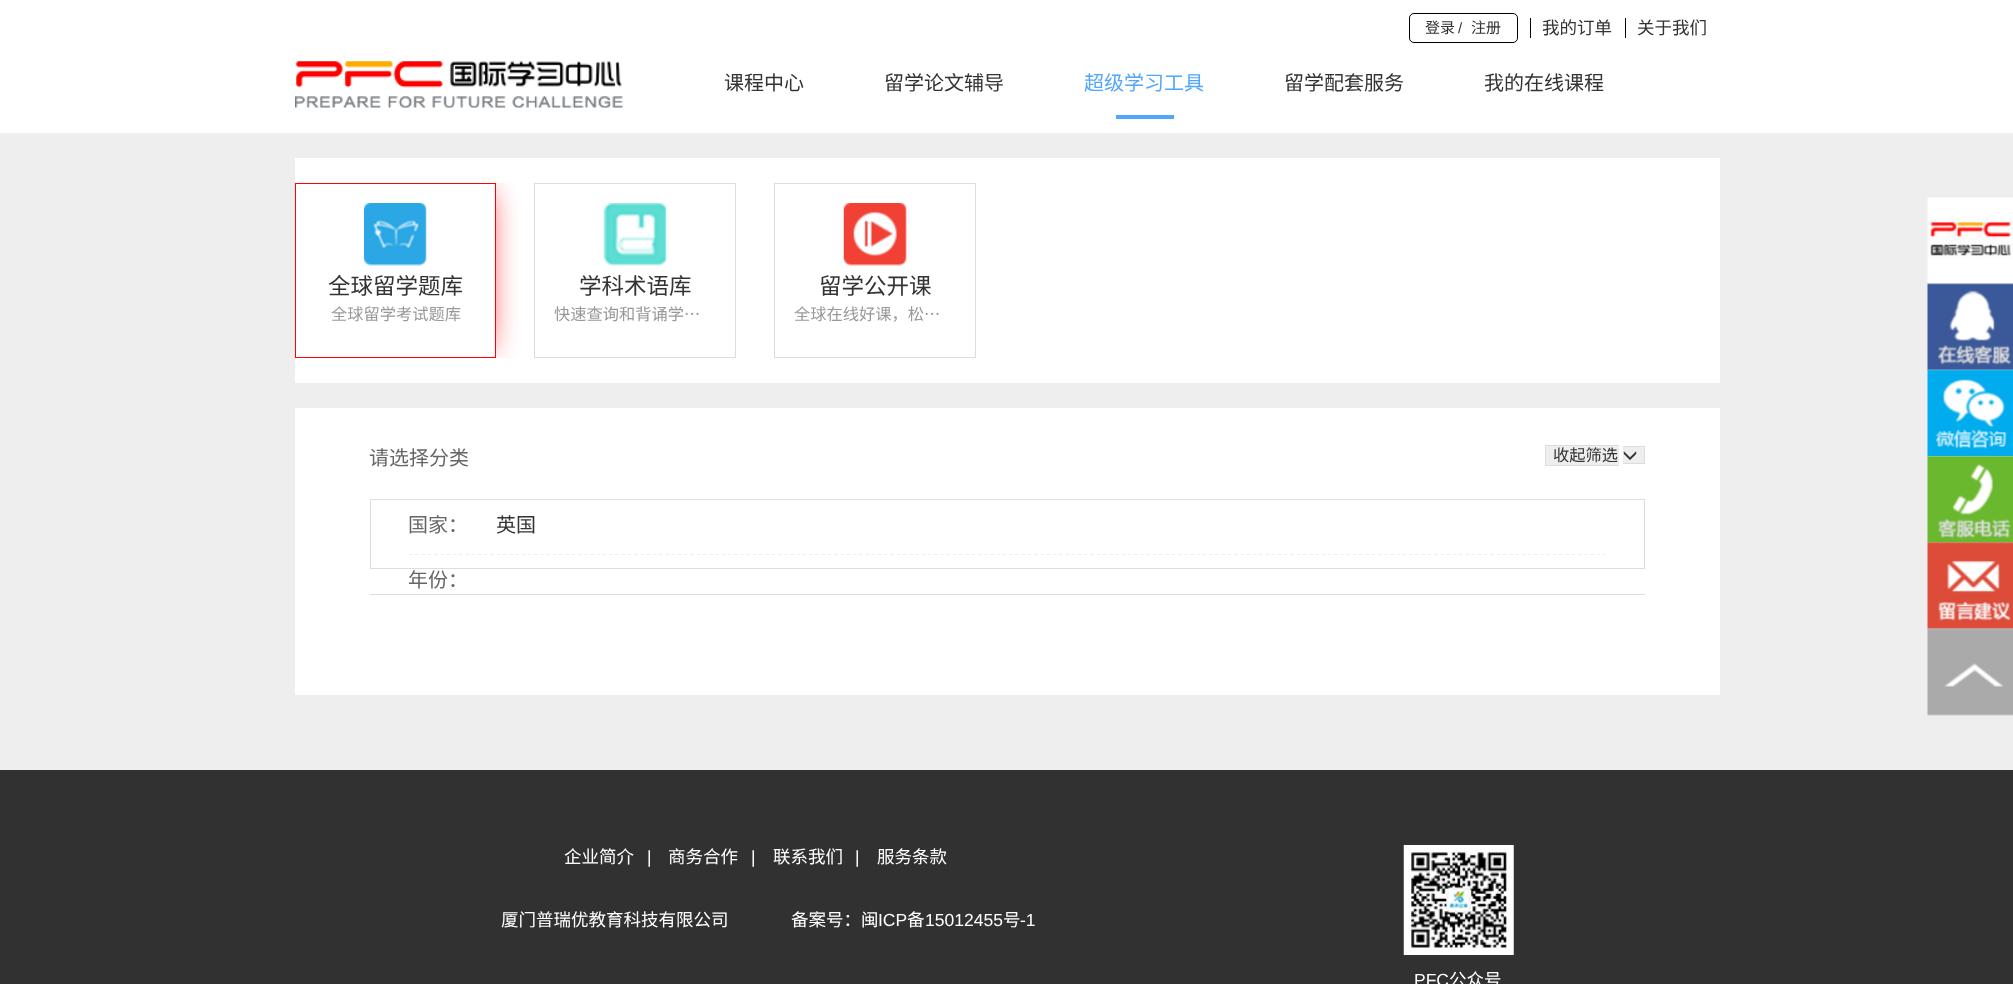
<!DOCTYPE html>
<meta charset="utf-8">
<style>body { margin: 0 } canvas { display: block }</style>
<canvas id="canvas" width="2013" height="984"></canvas>
<script type="module">
  const canvas = document.getElementById("canvas");
  const g = canvas.getContext("2d");
  g.miterLimit = 4;
  g.fontKerning = "normal";
  function drawText(s, x, y, [font, color]) {
    g.font = font;
    g.fillStyle = color;
    g.fillText(s, x, y);
  }
  function fillBox(x, y, w, h, color) {
    g.fillStyle = color;
    g.fillRect(x, y, w, h);
  }
  async function drawPicture(src, x, y, w, h) {
    const img = new Image();
    img.src = src;
    await img.decode();
    g.drawImage(img, x, y, w, h);
  }

  const s1 = ["15px Noto Sans CJK SC", "#333333"];
  const s2 = ["15px Liberation Sans", "#333333"];
  const s3 = ["17.5px Noto Sans CJK SC", "#333333"];
  const s4 = ["20px Noto Sans CJK SC", "#333333"];
  const s5 = ["20px Noto Sans CJK SC", "#51A7FE"];
  const s6 = ["22.5px Noto Sans CJK SC", "#333333"];
  const s7 = ["16.25px Noto Sans CJK SC", "#999999"];
  const s8 = ["20px Noto Sans CJK SC", "#666666"];
  const s9 = ["16.25px Noto Sans CJK SC", "#333333"];
  const s10 = ["17.5px Noto Sans CJK SC", "#FFFFFF"];
  const s11 = ["17.5px Liberation Sans", "#FFFFFF"];

  fillBox(0, 0, 2013, 984, "#EEEEEE");
  fillBox(0, 0, 2013, 133, "#FFFFFF");
  g.beginPath();
  g.roundRect(1409.5, 13.5, 108, 29, 4.5);
  g.strokeStyle = "#000000";
  g.stroke();
  drawText("登录", 1425, 33, s1);
  drawText("/", 1458, 33, s2);
  drawText("注册", 1471, 33, s1);
  fillBox(1530, 18, 1, 20, "#000000");
  drawText("我的订单", 1542, 34, s3);
  fillBox(1625, 18, 1, 20, "#000000");
  drawText("关于我们", 1637, 34, s3);
  await drawPicture("pic1.png", 295, 61, 328, 47);
  drawText("课程中心", 724, 90, s4);
  drawText("留学论文辅导", 884, 90, s4);
  drawText("超级学习工具", 1084, 90, s5);
  fillBox(1116, 115, 58, 4, "#51A7FE");
  drawText("留学配套服务", 1284, 90, s4);
  drawText("我的在线课程", 1484, 90, s4);
  fillBox(295, 158, 1425, 225, "#FFFFFF");
  g.save();
  g.beginPath();
  g.rect(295, 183, 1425, 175);
  g.clip();
  g.beginPath();
  g.rect(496, 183, 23, 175);
  g.clip();
  g.fillStyle = "#FF0000";
  g.filter = "blur(16px)";
  g.beginPath();
  g.rect(305, 193, 181, 155);
  g.fill();
  g.filter = "none";
  g.restore();
  g.strokeStyle = "#FF0000";
  g.strokeRect(295.5, 183.5, 200, 174);
  await drawPicture("pic2.png", 364, 203, 63, 63);
  drawText("全球留学题库", 328, 294, s6);
  drawText("全球留学考试题库", 331, 320, s7);
  g.strokeStyle = "#DDDDDD";
  g.strokeRect(534.5, 183.5, 201, 174);
  await drawPicture("pic3.png", 603, 203, 64, 63);
  drawText("学科术语库", 579, 294, s6);
  drawText("快速查询和背诵学…", 554, 320, s7);
  g.strokeRect(774.5, 183.5, 201, 174);
  await drawPicture("pic4.png", 843, 203, 64, 63);
  drawText("留学公开课", 819, 294, s6);
  drawText("全球在线好课，松…", 794, 320, s7);
  fillBox(295, 408, 1425, 287, "#FFFFFF");
  drawText("请选择分类", 369, 465, s8);
  fillBox(1546, 446, 73, 19, "#EEEEEE");
  fillBox(1545, 445, 74, 1, "#DDDDDD");
  fillBox(1545, 465, 74, 1, "#DDDDDD");
  fillBox(1545, 445, 1, 21, "#DDDDDD");
  fillBox(1623, 447, 21, 16, "#EEEEEE");
  fillBox(1623, 446, 22, 1, "#DDDDDD");
  fillBox(1644, 446, 1, 18, "#DDDDDD");
  fillBox(1623, 463, 22, 1, "#DDDDDD");
  drawText("收起筛选", 1553, 461, s9);
  await drawPicture("pic5.png", 1623, 451, 14, 9);
  g.strokeRect(370.5, 499.5, 1274, 69);
  g.beginPath();
  g.moveTo(409, 554.5);
  g.lineTo(1606, 554.5);
  g.strokeStyle = "#EEEEEE";
  g.lineWidth = 1.2;
  g.setLineDash([3.75, 2.5]);
  g.stroke();
  drawText("国家：", 408, 532, s8);
  drawText("英国", 496, 532, s4);
  drawText("年份：", 408, 587, s8);
  fillBox(370, 594, 1275, 1, "#DDDDDD");
  fillBox(0, 770, 2013, 214, "#313131");
  await drawPicture("pic6.png", 1927, 197, 86, 87);
  await drawPicture("pic7.png", 1927, 283, 86, 88);
  await drawPicture("pic8.png", 1927, 369, 86, 88);
  await drawPicture("pic9.png", 1927, 455, 86, 88);
  await drawPicture("pic10.png", 1927, 542, 86, 88);
  await drawPicture("pic11.png", 1927, 628, 86, 88);
  drawText("企业简介", 564, 863, s10);
  drawText("|", 647, 863, s11);
  drawText("商务合作", 668, 863, s10);
  drawText("|", 751, 863, s11);
  drawText("联系我们", 773, 863, s10);
  drawText("|", 855, 863, s11);
  drawText("服务条款", 877, 863, s10);
  drawText("厦门普瑞优教育科技有限公司", 501, 926, s10);
  drawText("备案号：闽", 791, 926, s10);
  drawText("ICP", 878, 926, s11);
  drawText("备", 907, 926, s10);
  drawText("15012455", 925, 926, s11);
  drawText("号", 1003, 926, s10);
  drawText("-1", 1020, 926, s11);
  await drawPicture("pic12.png", 1403, 845, 111, 110);
  drawText("PFC", 1414, 986, s11);
  drawText("公众号", 1449, 986, s10);
</script>
